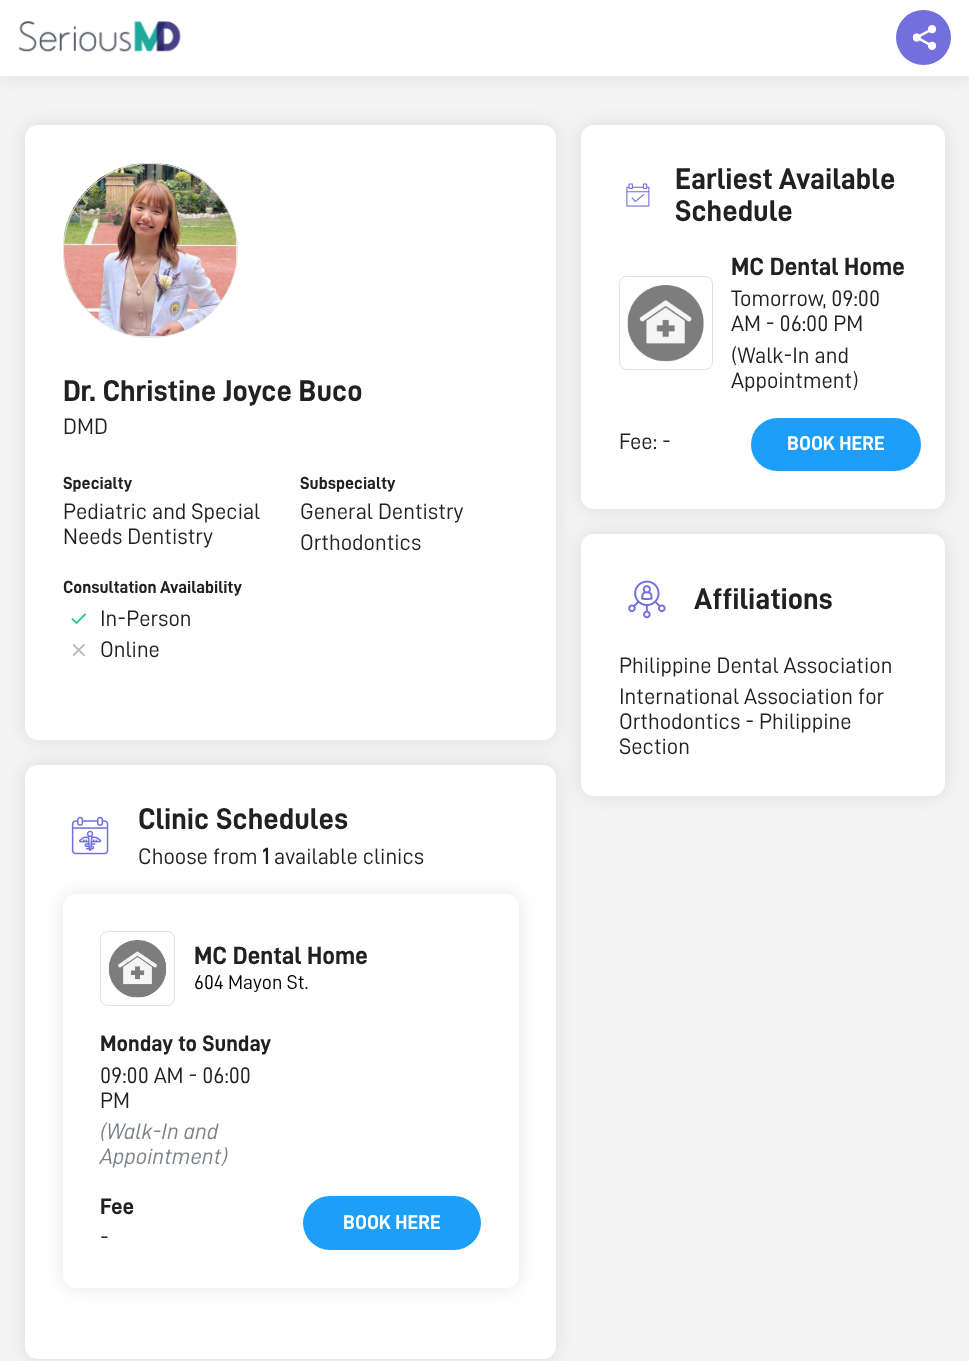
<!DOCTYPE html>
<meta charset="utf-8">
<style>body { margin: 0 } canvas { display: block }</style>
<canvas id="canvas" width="969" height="1361"></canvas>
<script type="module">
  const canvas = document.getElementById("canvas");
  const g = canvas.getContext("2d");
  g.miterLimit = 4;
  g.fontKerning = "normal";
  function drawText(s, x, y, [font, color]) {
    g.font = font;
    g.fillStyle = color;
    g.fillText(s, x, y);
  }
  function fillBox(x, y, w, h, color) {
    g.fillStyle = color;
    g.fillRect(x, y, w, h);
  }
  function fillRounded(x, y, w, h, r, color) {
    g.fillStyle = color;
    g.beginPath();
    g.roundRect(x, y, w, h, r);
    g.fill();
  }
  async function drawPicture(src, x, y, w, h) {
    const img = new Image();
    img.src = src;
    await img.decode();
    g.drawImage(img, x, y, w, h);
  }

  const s1 = ["bold 30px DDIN", "#212121"];
  const s2 = ["22.5px DDIN", "#212121"];
  const s3 = ["bold 17.5px DDIN", "#212121"];
  const s4 = ["bold 22.5px 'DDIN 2'", "#212121"];
  const s5 = ["bold 25px DDIN", "#212121"];
  const s6 = ["20px DDIN", "#000000"];
  const s7 = ["bold 22.5px DDIN", "#212121"];
  const s8 = ["italic 22.5px DDIN", "#7B8185"];
  const s9 = ["bold 20px DDIN", "#FFFFFF"];

  fillBox(0, 0, 969, 1361, "#F5F4F4");
  g.fillStyle = "rgba(0, 0, 0, 0.1)";
  g.filter = "blur(9.5px)";
  g.beginPath();
  g.rect(0, 0, 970, 76);
  g.fill();
  g.filter = "none";
  fillBox(0, 0, 969, 76, "#FFFFFF");
  await drawPicture("pic1.png", 18, 21, 163, 31);
  g.fillStyle = "#736FDC";
  g.beginPath();
  g.arc(923.5, 37.5, 27.5, 0, Math.PI * 2);
  g.fill();
  await drawPicture("pic2.png", 913, 25, 23, 25);
  g.fillStyle = "rgba(0, 0, 0, 0.1)";
  g.filter = "blur(9.5px)";
  g.beginPath();
  g.roundRect(25, 125, 531, 615, 13);
  g.fill();
  g.filter = "none";
  fillRounded(25, 125, 531, 615, 13, "#FFFFFF");
  await drawPicture("pic3.png", 63, 163, 174, 174);
  g.beginPath();
  g.arc(150.5, 250.5, 87, 0, Math.PI * 2);
  g.strokeStyle = "#E1E1E1";
  g.stroke();
  drawText("Dr. Christine Joyce Buco", 63, 401, s1);
  drawText("DMD", 63, 434, s2);
  drawText("Specialty", 63, 489, s3);
  drawText("Pediatric and Special", 63, 519, s2);
  drawText("Needs Dentistry", 63, 544, s2);
  drawText("Subspecialty", 300, 489, s3);
  drawText("General Dentistry", 300, 519, s2);
  drawText("Orthodontics", 300, 550, s2);
  drawText("Consultation Availability", 63, 593, s3);
  await drawPicture("pic4.png", 71, 613, 15, 11);
  drawText("In-Person", 100, 626, s2);
  await drawPicture("pic5.png", 73, 644, 12, 12);
  drawText("Online", 100, 657, s2);
  g.fillStyle = "rgba(0, 0, 0, 0.1)";
  g.filter = "blur(9.5px)";
  g.beginPath();
  g.roundRect(25, 765, 531, 594, 13);
  g.fill();
  g.filter = "none";
  fillRounded(25, 765, 531, 594, 13, "#FFFFFF");
  await drawPicture("pic6.png", 71, 816, 38, 39);
  drawText("Clinic Schedules", 138, 829, s1);
  g.fillStyle = "rgba(0, 0, 0, 0.1)";
  g.filter = "blur(9.5px)";
  g.beginPath();
  g.roundRect(63, 894, 456, 394, 13);
  g.fill();
  g.filter = "none";
  drawText("Choose from", 138, 864, s2);
  drawText("1", 262, 864, s4);
  drawText("available clinics", 274, 864, s2);
  fillRounded(63, 894, 456, 394, 13, "#FFFFFF");
  g.beginPath();
  g.roundRect(100.5, 931.5, 74, 74, 7.5);
  g.stroke();
  await drawPicture("pic7.png", 108, 940, 59, 58);
  drawText("MC Dental Home", 194, 964, s5);
  drawText("604 Mayon St.", 194, 989, s6);
  drawText("Monday to Sunday", 100, 1051, s7);
  drawText("09:00 AM - 06:00", 100, 1083, s2);
  drawText("PM", 100, 1108, s2);
  drawText("(Walk-In and", 100, 1139, s8);
  drawText("Appointment)", 100, 1164, s8);
  drawText("Fee", 100, 1214, s7);
  drawText("-", 100, 1245, s2);
  fillRounded(303, 1196, 178, 54, 27, "#1C9EF9");
  drawText("BOOK HERE", 343, 1229, s9);
  g.fillStyle = "rgba(0, 0, 0, 0.1)";
  g.filter = "blur(9.5px)";
  g.beginPath();
  g.roundRect(581, 125, 364, 384, 13);
  g.fill();
  g.filter = "none";
  fillRounded(581, 125, 364, 384, 13, "#FFFFFF");
  await drawPicture("pic8.png", 626, 183, 24, 24);
  drawText("Earliest Available", 675, 189, s1);
  drawText("Schedule", 675, 221, s1);
  g.beginPath();
  g.roundRect(619.5, 276.5, 93, 93, 7.5);
  g.stroke();
  await drawPicture("pic9.png", 627, 285, 77, 77);
  drawText("MC Dental Home", 731, 275, s5);
  drawText("Tomorrow, 09:00", 731, 306, s2);
  drawText("AM - 06:00 PM", 731, 331, s2);
  drawText("(Walk-In and", 731, 363, s2);
  drawText("Appointment)", 731, 388, s2);
  drawText("Fee: -", 619, 449, s2);
  fillRounded(751, 418, 170, 53, 26.5, "#1C9EF9");
  drawText("BOOK HERE", 787, 450, s9);
  g.fillStyle = "rgba(0, 0, 0, 0.1)";
  g.filter = "blur(9.5px)";
  g.beginPath();
  g.roundRect(581, 534, 364, 262, 13);
  g.fill();
  g.filter = "none";
  fillRounded(581, 534, 364, 262, 13, "#FFFFFF");
  await drawPicture("pic10.png", 628, 580, 38, 39);
  drawText("Affiliations", 694, 609, s1);
  drawText("Philippine Dental Association", 619, 673, s2);
  drawText("International Association for", 619, 704, s2);
  drawText("Orthodontics - Philippine", 619, 729, s2);
  drawText("Section", 619, 754, s2);
</script>
